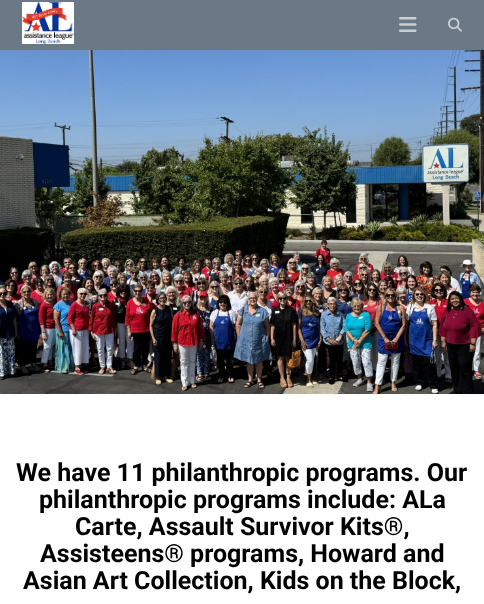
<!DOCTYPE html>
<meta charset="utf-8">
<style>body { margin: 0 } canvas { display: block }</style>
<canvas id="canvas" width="484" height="604"></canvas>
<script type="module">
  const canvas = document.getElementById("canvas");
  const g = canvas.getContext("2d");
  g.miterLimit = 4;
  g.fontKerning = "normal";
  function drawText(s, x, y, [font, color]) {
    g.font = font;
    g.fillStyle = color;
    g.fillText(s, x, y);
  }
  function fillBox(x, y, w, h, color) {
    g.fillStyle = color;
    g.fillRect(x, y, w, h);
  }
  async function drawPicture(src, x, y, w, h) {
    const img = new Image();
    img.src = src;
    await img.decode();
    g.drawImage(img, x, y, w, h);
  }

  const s1 = ["bold 25px Roboto", "#000000"];

  fillBox(0, 0, 484, 604, "#FFFFFF");
  fillBox(0, 0, 484, 50, "#6B7986");
  await drawPicture("pic1.png", 22, 2, 52, 42);
  await drawPicture("pic2.png", 399, 17, 18, 15);
  await drawPicture("pic3.png", 448, 17, 14, 15);
  await drawPicture("pic4.png", 0, 50, 484, 344);
  drawText("We have 11 philanthropic programs. Our", 16, 481, s1);
  drawText("philanthropic programs include: ALa", 39, 508, s1);
  drawText("Carte, Assault Survivor Kits®,", 75, 535, s1);
  drawText("Assisteens® programs, Howard and", 40, 562, s1);
  drawText("Asian Art Collection, Kids on the Block,", 23, 589, s1);
</script>
